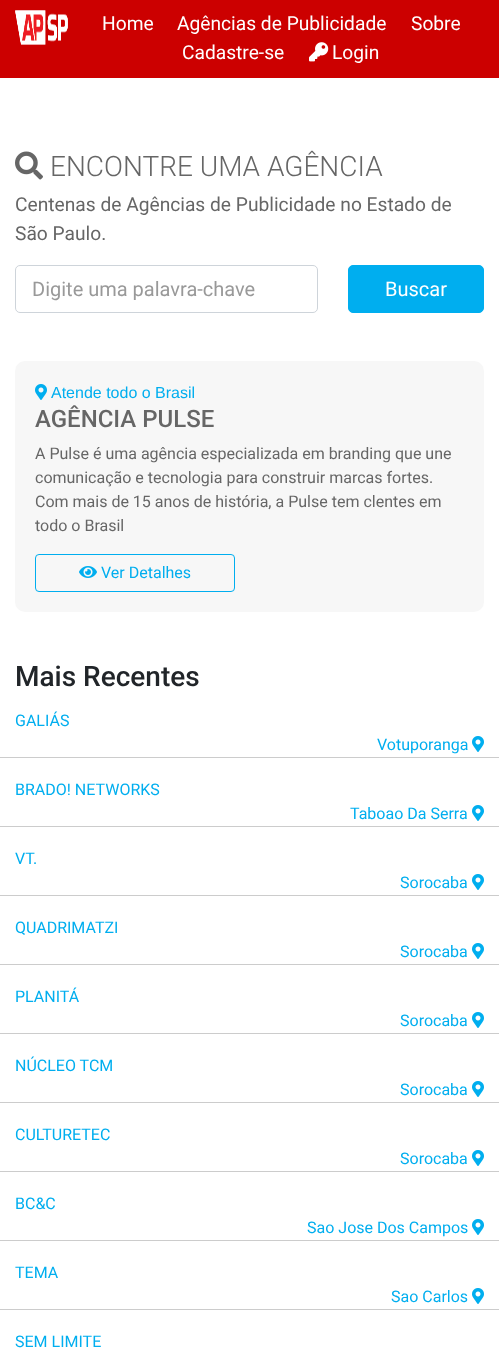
<!DOCTYPE html>
<meta charset="utf-8">
<style>body { margin: 0 } canvas { display: block }</style>
<canvas id="canvas" width="499" height="1355"></canvas>
<script type="module">
  const canvas = document.getElementById("canvas");
  const g = canvas.getContext("2d");
  g.miterLimit = 4;
  g.fontKerning = "normal";
  function drawText(s, x, y, [font, color]) {
    g.font = font;
    g.fillStyle = color;
    g.fillText(s, x, y);
  }
  function fillBox(x, y, w, h, color) {
    g.fillStyle = color;
    g.fillRect(x, y, w, h);
  }
  function fillRounded(x, y, w, h, r, color) {
    g.fillStyle = color;
    g.beginPath();
    g.roundRect(x, y, w, h, r);
    g.fill();
  }
  async function drawPicture(src, x, y, w, h) {
    const img = new Image();
    img.src = src;
    await img.decode();
    g.drawImage(img, x, y, w, h);
  }

  const s1 = ["19.2px Roboto", "#FFFFFF"];
  const s2 = ["300 28px Roboto", "#666666"];
  const s3 = ["19.2px Roboto", "#666666"];
  const s4 = ["20px Roboto", "#999999"];
  const s5 = ["20px Roboto", "#FFFFFF"];
  const s6 = ["16px Liberation Sans", "#00AEEF"];
  const s7 = ["500 24px Roboto", "#666666"];
  const s8 = ["16px Roboto", "#666666"];
  const s9 = ["16px Roboto", "#00AEEF"];
  const s10 = ["500 28px Roboto", "#212529"];

  fillBox(0, 0, 499, 1355, "#FFFFFF");
  fillBox(0, 0, 499, 78, "#CC0000");
  await drawPicture("pic1.png", 15, 10, 53, 35);
  drawText("Home", 102, 30, s1);
  drawText("Agências de Publicidade", 177, 30, s1);
  drawText("Sobre", 411, 30, s1);
  drawText("Cadastre-se", 182, 59, s1);
  await drawPicture("pic2.png", 309, 42, 20, 20);
  drawText("Login", 332, 59, s1);
  await drawPicture("pic3.png", 15, 151, 28, 29);
  drawText("ENCONTRE UMA AGÊNCIA", 50, 176, s2);
  drawText("Centenas de Agências de Publicidade no Estado de", 15, 211, s3);
  drawText("São Paulo.", 15, 240, s3);
  g.beginPath();
  g.roundRect(15.5, 265.5, 302, 47, 4.5);
  g.strokeStyle = "#CED4DA";
  g.stroke();
  drawText("Digite uma palavra-chave", 32, 296, s4);
  g.fillStyle = "#00AEEF";
  g.beginPath();
  g.roundRect(348.5, 265.5, 135, 47, 4.5);
  g.fill();
  g.strokeStyle = "#00AEEF";
  g.stroke();
  drawText("Buscar", 385, 296, s5);
  fillRounded(15, 361, 469, 251, 10, "#F7F7F7");
  await drawPicture("pic4.png", 35, 384, 12, 16);
  drawText("Atende todo o Brasil", 51, 398, s6);
  drawText("AGÊNCIA PULSE", 35, 427, s7);
  drawText("A Pulse é uma agência especializada em branding que une", 35, 459, s8);
  drawText("comunicação e tecnologia para construir marcas fortes.", 35, 483, s8);
  drawText("Com mais de 15 anos de história, a Pulse tem clentes em", 35, 507, s8);
  drawText("todo o Brasil", 35, 531, s8);
  g.beginPath();
  g.roundRect(35.5, 554.5, 199, 37, 3.5);
  g.stroke();
  await drawPicture("pic5.png", 79, 566, 18, 12);
  drawText("Ver Detalhes", 101, 578, s9);
  drawText("Mais Recentes", 15, 686, s10);
  fillBox(0, 757, 499, 1, "#CCCCCC");
  drawText("GALIÁS", 15, 726, s9);
  drawText("Votuporanga", 377, 750, s9);
  await drawPicture("pic6.png", 472, 736, 12, 16);
  fillBox(0, 826, 499, 1, "#CCCCCC");
  drawText("BRADO! NETWORKS", 15, 795, s9);
  drawText("Taboao Da Serra", 350, 819, s9);
  await drawPicture("pic6.png", 472, 805, 12, 16);
  fillBox(0, 895, 499, 1, "#CCCCCC");
  drawText("VT.", 15, 864, s9);
  drawText("Sorocaba", 400, 888, s9);
  await drawPicture("pic6.png", 472, 874, 12, 16);
  fillBox(0, 964, 499, 1, "#CCCCCC");
  drawText("QUADRIMATZI", 15, 933, s9);
  drawText("Sorocaba", 400, 957, s9);
  await drawPicture("pic6.png", 472, 943, 12, 16);
  fillBox(0, 1033, 499, 1, "#CCCCCC");
  drawText("PLANITÁ", 15, 1002, s9);
  drawText("Sorocaba", 400, 1026, s9);
  await drawPicture("pic6.png", 472, 1012, 12, 16);
  fillBox(0, 1102, 499, 1, "#CCCCCC");
  drawText("NÚCLEO TCM", 15, 1071, s9);
  drawText("Sorocaba", 400, 1095, s9);
  await drawPicture("pic6.png", 472, 1081, 12, 16);
  fillBox(0, 1171, 499, 1, "#CCCCCC");
  drawText("CULTURETEC", 15, 1140, s9);
  drawText("Sorocaba", 400, 1164, s9);
  await drawPicture("pic6.png", 472, 1150, 12, 16);
  fillBox(0, 1240, 499, 1, "#CCCCCC");
  drawText("BC&C", 15, 1209, s9);
  drawText("Sao Jose Dos Campos", 307, 1233, s9);
  await drawPicture("pic6.png", 472, 1219, 12, 16);
  fillBox(0, 1309, 499, 1, "#CCCCCC");
  drawText("TEMA", 15, 1278, s9);
  drawText("Sao Carlos", 391, 1302, s9);
  await drawPicture("pic6.png", 472, 1288, 12, 16);
  drawText("SEM LIMITE", 15, 1347, s9);
</script>
